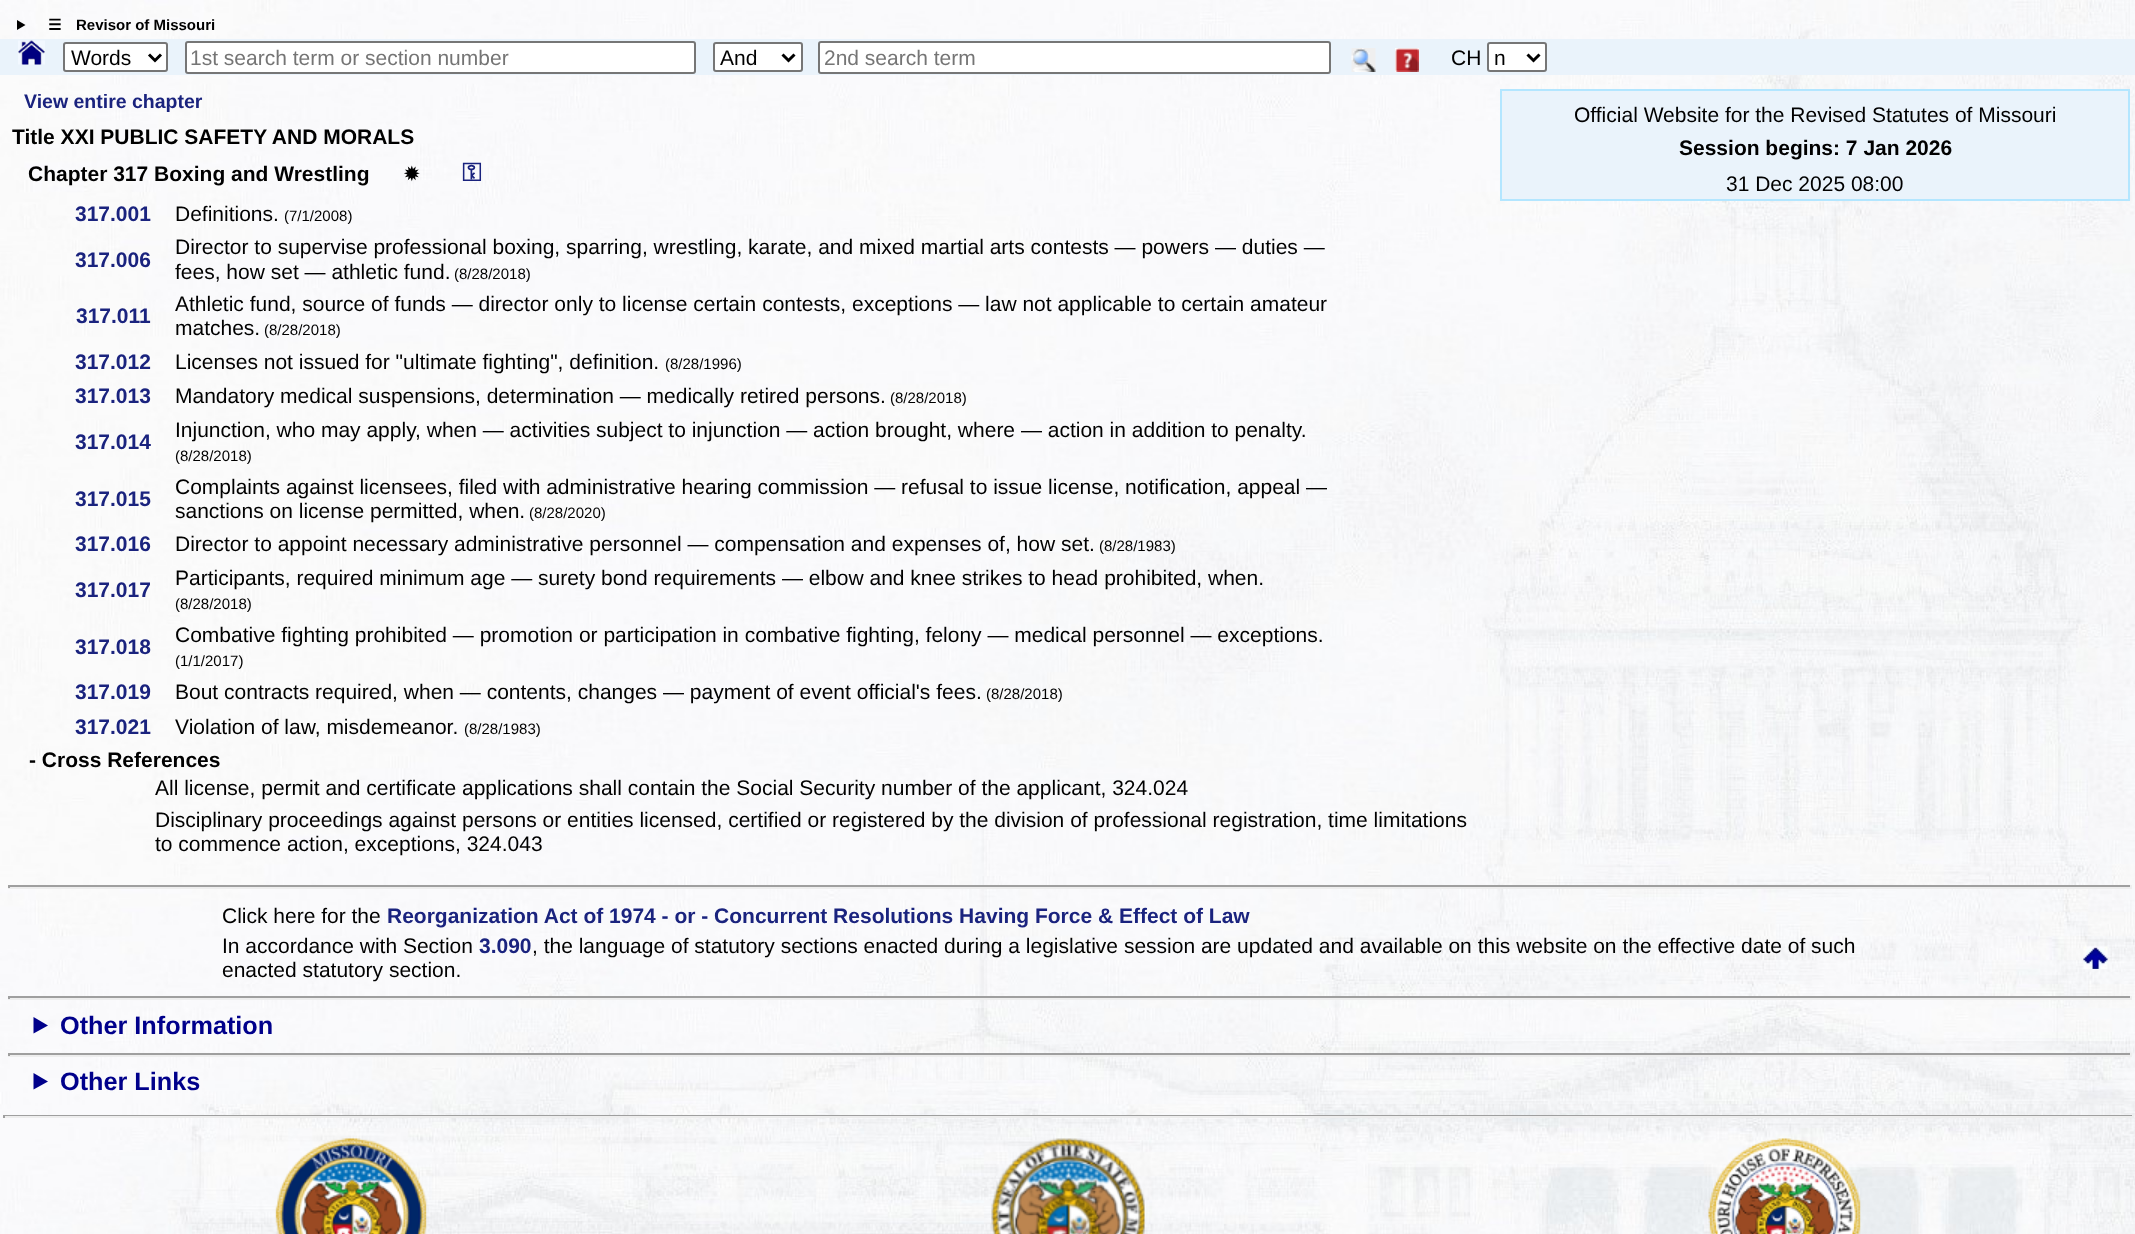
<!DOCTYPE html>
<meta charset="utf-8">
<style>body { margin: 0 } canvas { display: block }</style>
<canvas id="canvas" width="2135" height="1234"></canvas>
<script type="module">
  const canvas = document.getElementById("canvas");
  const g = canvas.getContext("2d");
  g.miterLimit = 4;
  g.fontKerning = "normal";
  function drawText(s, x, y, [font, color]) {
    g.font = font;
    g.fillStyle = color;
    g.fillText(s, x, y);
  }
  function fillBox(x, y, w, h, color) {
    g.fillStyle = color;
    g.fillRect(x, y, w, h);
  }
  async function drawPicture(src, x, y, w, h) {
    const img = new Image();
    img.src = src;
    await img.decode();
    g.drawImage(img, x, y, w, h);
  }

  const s1 = ["bold 15px DejaVu Sans", "#000000"];
  const s2 = ["bold 15px Liberation Sans", "#000000"];
  const s3 = ["21px Liberation Sans", "#000000"];
  const s4 = ["21px Liberation Sans", "#757575"];
  const s5 = ["bold 19.5px Liberation Sans", "#1A237E"];
  const s6 = ["bold 21px Liberation Sans", "#000000"];
  const s7 = ["21px DejaVu Sans", "#000000"];
  const s8 = ["bold 25.25px FreeSerif", "#1A237E"];
  const s9 = ["bold 21px Liberation Sans", "#1A237E"];
  const s10 = ["15px Liberation Sans", "#000000"];
  const s11 = ["bold 25.25px Liberation Sans", "#00008B"];

  fillBox(0, 0, 2135, 1234, "#FFFFFF");
  await drawPicture("pic1.png", 0, 0, 2135, 1234);
  g.fillStyle = "#000000";
  g.beginPath();
  g.moveTo(17, 20);
  g.lineTo(25.5, 25);
  g.lineTo(17, 30);
  g.closePath();
  g.fill();
  drawText("☰", 48, 30, s1);
  drawText("Revisor of Missouri", 76, 30, s2);
  fillBox(0, 39, 2135, 36, "#EAF3FB");
  await drawPicture("pic2.png", 18, 40, 27, 25);
  g.fillStyle = "#FFFFFF";
  g.beginPath();
  g.roundRect(64, 43, 103, 28, 2);
  g.fill();
  g.strokeStyle = "#767676";
  g.lineWidth = 2;
  g.stroke();
  g.beginPath();
  g.moveTo(149, 54.5);
  g.lineTo(155, 60.5);
  g.lineTo(161, 54.5);
  g.strokeStyle = "#000000";
  g.lineWidth = 3;
  g.stroke();
  drawText("Words", 71, 65, s3);
  g.fillStyle = "#FFFFFF";
  g.beginPath();
  g.roundRect(186, 42, 509, 31, 2);
  g.fill();
  g.strokeStyle = "#767676";
  g.lineWidth = 2;
  g.stroke();
  drawText("1st search term or section number", 190, 65, s4);
  g.fillStyle = "#FFFFFF";
  g.beginPath();
  g.roundRect(714, 43, 88, 28, 2);
  g.fill();
  g.stroke();
  g.beginPath();
  g.moveTo(782.5, 54.5);
  g.lineTo(788.5, 60.5);
  g.lineTo(794.5, 54.5);
  g.strokeStyle = "#000000";
  g.lineWidth = 3;
  g.stroke();
  drawText("And", 720, 65, s3);
  g.fillStyle = "#FFFFFF";
  g.beginPath();
  g.roundRect(819, 42, 511, 31, 2);
  g.fill();
  g.strokeStyle = "#767676";
  g.lineWidth = 2;
  g.stroke();
  drawText("2nd search term", 824, 65, s4);
  await drawPicture("pic3.png", 1351, 48, 25, 24);
  await drawPicture("pic4.png", 1395, 48, 24, 24);
  drawText("CH", 1451, 65, s3);
  g.fillStyle = "#FFFFFF";
  g.beginPath();
  g.roundRect(1488, 43, 58, 28, 2);
  g.fill();
  g.stroke();
  g.beginPath();
  g.moveTo(1527.5, 54.5);
  g.lineTo(1533.5, 60.5);
  g.lineTo(1539.5, 54.5);
  g.strokeStyle = "#000000";
  g.lineWidth = 3;
  g.stroke();
  drawText("n", 1494, 65, s3);
  drawText("View entire chapter", 24, 108, s5);
  drawText("Title XXI PUBLIC SAFETY AND MORALS", 12, 144, s6);
  drawText("Chapter 317 Boxing and Wrestling", 28, 181, s6);
  drawText("✹", 403, 181, s7);
  drawText("⚿", 462, 181, s8);
  drawText("317.001", 75, 221, s9);
  drawText("Definitions.", 175, 221, s3);
  drawText("(7/1/2008)", 284, 221, s10);
  drawText("317.006", 75, 267, s9);
  drawText("Director to supervise professional boxing, sparring, wrestling, karate, and mixed martial arts contests — powers — duties —", 175, 254, s3);
  drawText("fees, how set — athletic fund.", 175, 279, s3);
  drawText("(8/28/2018)", 454, 279, s10);
  drawText("317.011", 76, 323, s9);
  drawText("Athletic fund, source of funds — director only to license certain contests, exceptions — law not applicable to certain amateur", 175, 311, s3);
  drawText("matches.", 175, 335, s3);
  drawText("(8/28/2018)", 264, 335, s10);
  drawText("317.012", 75, 369, s9);
  drawText("Licenses not issued for \"ultimate fighting\", definition.", 175, 369, s3);
  drawText("(8/28/1996)", 665, 369, s10);
  drawText("317.013", 75, 403, s9);
  drawText("Mandatory medical suspensions, determination — medically retired persons.", 175, 403, s3);
  drawText("(8/28/2018)", 890, 403, s10);
  drawText("317.014", 75, 449, s9);
  drawText("Injunction, who may apply, when — activities subject to injunction — action brought, where — action in addition to penalty.", 175, 437, s3);
  drawText("(8/28/2018)", 175, 461, s10);
  drawText("317.015", 75, 506, s9);
  drawText("Complaints against licensees, filed with administrative hearing commission — refusal to issue license, notification, appeal —", 175, 494, s3);
  drawText("sanctions on license permitted, when.", 175, 518, s3);
  drawText("(8/28/2020)", 529, 518, s10);
  drawText("317.016", 75, 551, s9);
  drawText("Director to appoint necessary administrative personnel — compensation and expenses of, how set.", 175, 551, s3);
  drawText("(8/28/1983)", 1099, 551, s10);
  drawText("317.017", 75, 597, s9);
  drawText("Participants, required minimum age — surety bond requirements — elbow and knee strikes to head prohibited, when.", 175, 585, s3);
  drawText("(8/28/2018)", 175, 609, s10);
  drawText("317.018", 75, 654, s9);
  drawText("Combative fighting prohibited — promotion or participation in combative fighting, felony — medical personnel — exceptions.", 175, 642, s3);
  drawText("(1/1/2017)", 175, 666, s10);
  drawText("317.019", 75, 699, s9);
  drawText("Bout contracts required, when — contents, changes — payment of event official's fees.", 175, 699, s3);
  drawText("(8/28/2018)", 986, 699, s10);
  drawText("317.021", 75, 734, s9);
  drawText("Violation of law, misdemeanor.", 175, 734, s3);
  drawText("(8/28/1983)", 464, 734, s10);
  drawText("- Cross References", 29, 767, s6);
  drawText("All license, permit and certificate applications shall contain the Social Security number of the applicant, 324.024", 155, 795, s3);
  drawText("Disciplinary proceedings against persons or entities licensed, certified or registered by the division of professional registration, time limitations", 155, 827, s3);
  drawText("to commence action, exceptions, 324.043", 155, 851, s3);
  g.fillStyle = "#EAF3FB";
  g.beginPath();
  g.rect(1501, 90, 628, 110);
  g.fill();
  g.strokeStyle = "#B3E6FF";
  g.lineWidth = 2;
  g.stroke();
  drawText("Official Website for the Revised Statutes of Missouri", 1574, 122, s3);
  drawText("Session begins: 7 Jan 2026", 1679, 155, s6);
  drawText("31 Dec 2025 08:00", 1726, 191, s3);
  fillBox(8, 885, 2124, 2, "#9F9F9F");
  fillBox(2130, 885, 2, 3, "#EEEEEE");
  fillBox(8, 887, 2124, 2, "#EEEEEE");
  fillBox(8, 885, 2, 3, "#9F9F9F");
  drawText("Click here for the", 222, 923, s3);
  drawText("Reorganization Act of 1974 - or - Concurrent Resolutions Having Force & Effect of Law", 387, 923, s9);
  drawText("In accordance with Section", 222, 953, s3);
  drawText("3.090", 479, 953, s9);
  drawText(", the language of statutory sections enacted during a legislative session are updated and available on this website on the effective date of such", 532, 953, s3);
  drawText("enacted statutory section.", 222, 977, s3);
  await drawPicture("pic5.png", 2083, 946, 25, 23);
  fillBox(8, 996, 2124, 2, "#9F9F9F");
  fillBox(2130, 996, 2, 3, "#EEEEEE");
  fillBox(8, 998, 2124, 2, "#EEEEEE");
  fillBox(8, 996, 2, 3, "#9F9F9F");
  g.fillStyle = "#00008B";
  g.beginPath();
  g.moveTo(33.5, 1017);
  g.lineTo(48, 1025.5);
  g.lineTo(33.5, 1033.5);
  g.closePath();
  g.fill();
  drawText("Other Information", 60, 1034, s11);
  fillBox(8, 1053, 2124, 2, "#9F9F9F");
  fillBox(2130, 1053, 2, 3, "#EEEEEE");
  fillBox(8, 1055, 2124, 2, "#EEEEEE");
  fillBox(8, 1053, 2, 3, "#9F9F9F");
  g.fillStyle = "#00008B";
  g.beginPath();
  g.moveTo(33.5, 1073);
  g.lineTo(48, 1081.5);
  g.lineTo(33.5, 1089.5);
  g.closePath();
  g.fill();
  drawText("Other Links", 60, 1090, s11);
  fillBox(3, 1115, 2130, 1, "#9F9F9F");
  fillBox(2132, 1115, 2, 3, "#EEEEEE");
  fillBox(3, 1116, 2130, 2, "#EEEEEE");
  fillBox(3, 1115, 2, 3, "#9F9F9F");
  await drawPicture("pic6.png", 275, 1138, 152, 96);
  await drawPicture("pic7.png", 991, 1138, 154, 96);
  await drawPicture("pic8.png", 1708, 1138, 153, 96);
</script>
